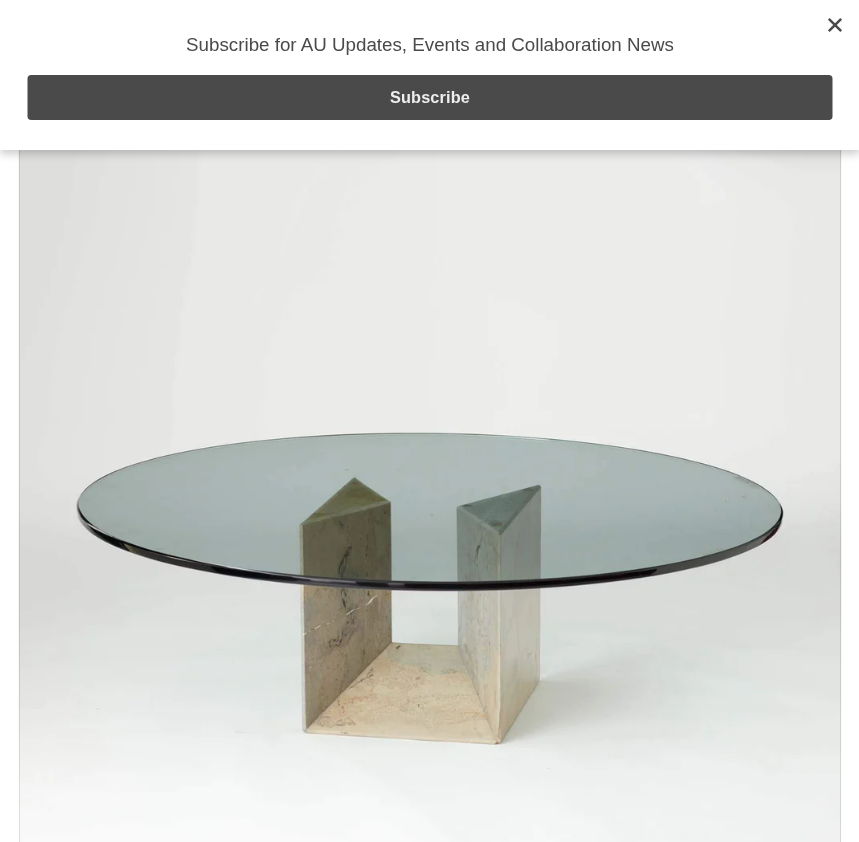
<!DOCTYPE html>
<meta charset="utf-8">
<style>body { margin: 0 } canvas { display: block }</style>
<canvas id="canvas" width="859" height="842"></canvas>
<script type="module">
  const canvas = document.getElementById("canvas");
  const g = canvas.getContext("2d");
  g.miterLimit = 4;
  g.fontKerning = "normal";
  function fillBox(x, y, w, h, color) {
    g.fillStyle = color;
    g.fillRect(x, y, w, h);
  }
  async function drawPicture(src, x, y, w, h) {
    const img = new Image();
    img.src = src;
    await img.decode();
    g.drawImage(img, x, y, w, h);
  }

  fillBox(0, 0, 859, 842, "#FFFFFF");
  await drawPicture("pic2.png", 18, 150, 824, 692);
  g.strokeStyle = "rgba(0, 0, 0, 0.1)";
  g.strokeRect(19.5, 128.5, 821, 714);
  g.fillStyle = "rgba(0, 0, 0, 0.2)";
  g.filter = "blur(4px)";
  g.beginPath();
  g.rect(0, 4, 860, 150);
  g.fill();
  g.filter = "none";
  fillBox(0, 0, 859, 150, "#FFFFFF");
  await drawPicture("pic1.png", 27, 18, 815, 102);
</script>
